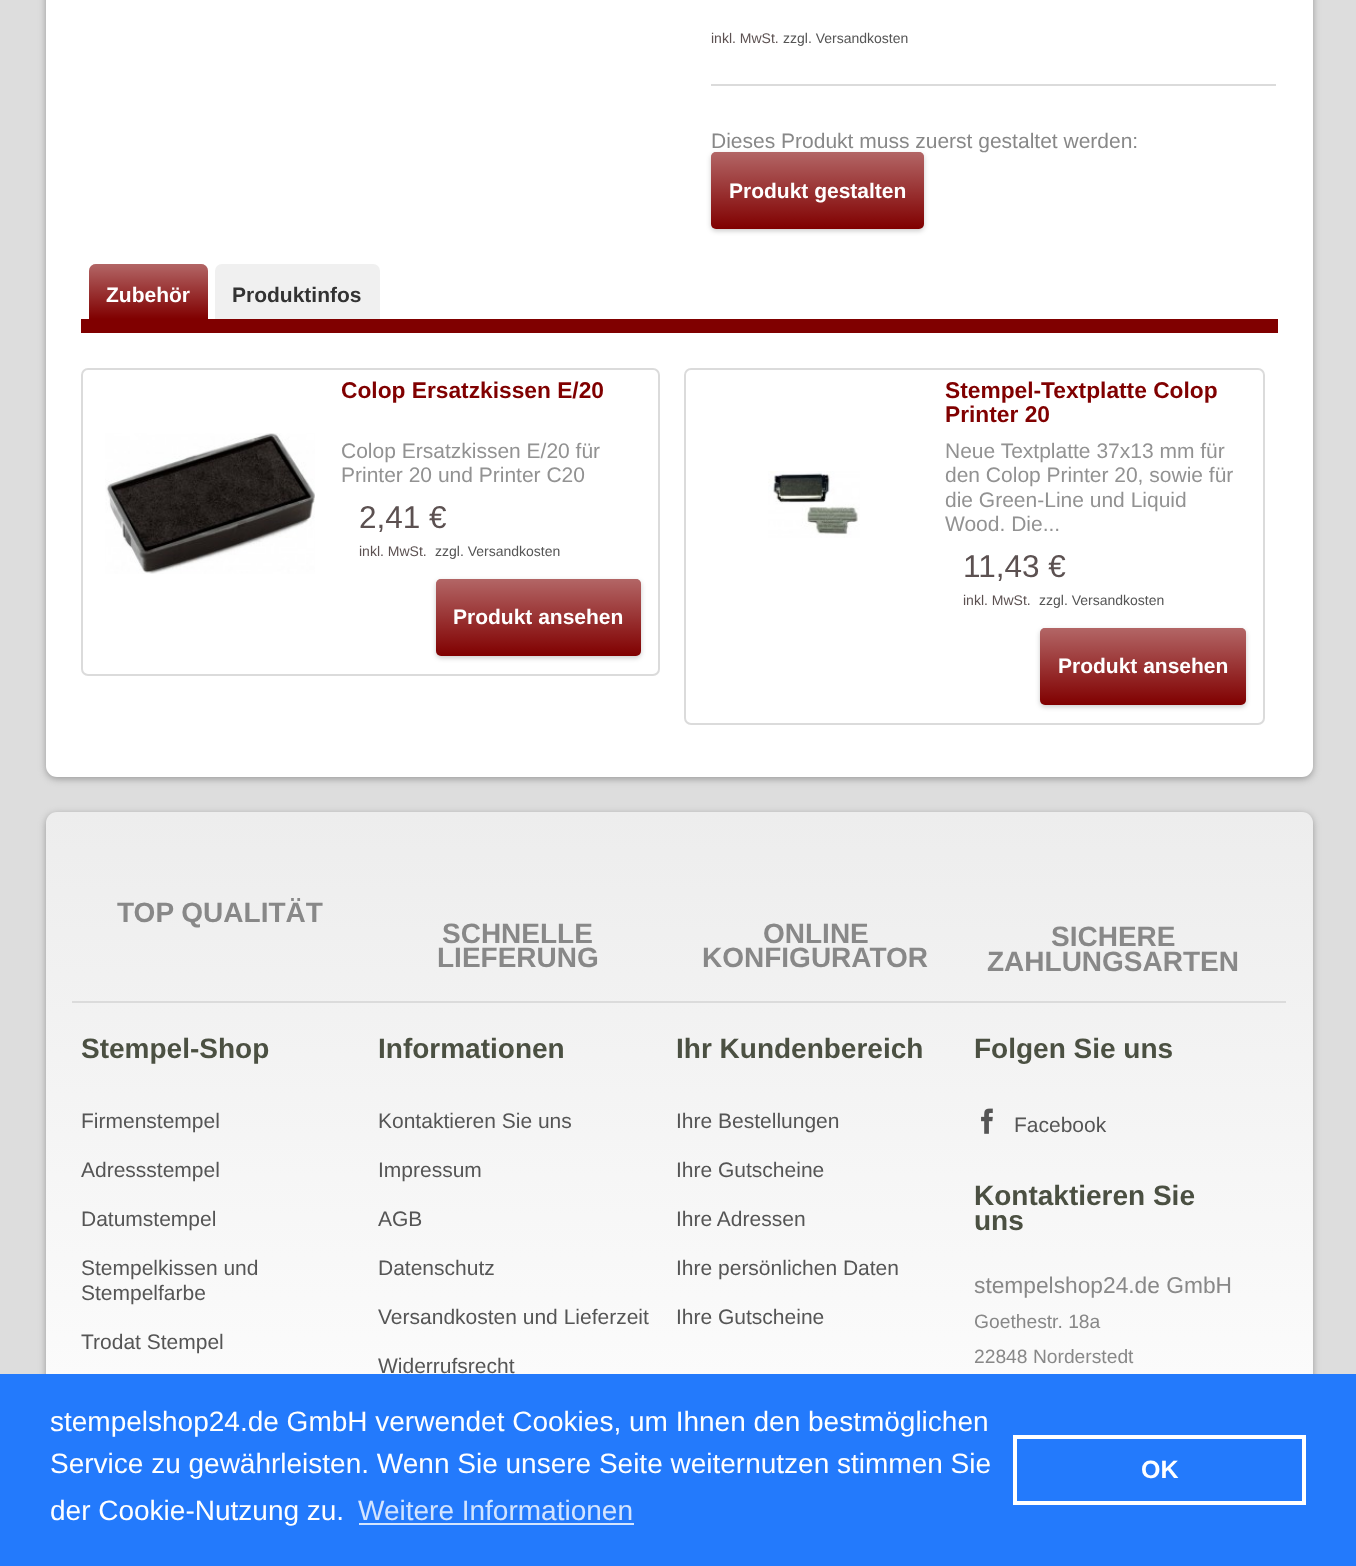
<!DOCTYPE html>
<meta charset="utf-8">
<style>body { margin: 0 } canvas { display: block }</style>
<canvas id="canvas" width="1356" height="1566"></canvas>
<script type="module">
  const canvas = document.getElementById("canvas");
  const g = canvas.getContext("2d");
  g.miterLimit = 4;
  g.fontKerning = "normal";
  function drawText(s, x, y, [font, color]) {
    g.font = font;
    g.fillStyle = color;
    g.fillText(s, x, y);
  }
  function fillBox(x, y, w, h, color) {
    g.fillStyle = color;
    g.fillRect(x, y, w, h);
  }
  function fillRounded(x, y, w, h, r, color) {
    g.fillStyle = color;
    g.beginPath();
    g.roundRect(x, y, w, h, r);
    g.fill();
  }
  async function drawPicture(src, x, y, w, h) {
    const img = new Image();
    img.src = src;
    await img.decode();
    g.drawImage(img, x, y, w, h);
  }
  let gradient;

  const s1 = ["14px Liberation Sans", "#5C5151"];
  const s2 = ["14px Liberation Sans", "#555555"];
  const s3 = ["21px Liberation Sans", "#888888"];
  const s4 = ["bold 21px Liberation Sans", "#FFFFFF"];
  const s5 = ["bold 21px Liberation Sans", "#333333"];
  const s6 = ["bold 22.75px Liberation Sans", "#800000"];
  const s7 = ["21px Liberation Sans", "#929292"];
  const s8 = ["31.5px Liberation Sans", "#5C5151"];
  const s9 = ["bold 28px Liberation Sans", "#888888"];
  const s10 = ["bold 28px Liberation Sans", "#4B5042"];
  const s11 = ["21px Liberation Sans", "#555555"];
  const s12 = ["22.75px Liberation Sans", "#888888"];
  const s13 = ["19.25px Liberation Sans", "#888888"];
  const s14 = ["28px Liberation Sans", "#FFFFFF"];
  const s15 = ["28px Liberation Sans", "#D3E4FE"];
  const s16 = ["bold 25px Liberation Sans", "#FFFFFF"];

  fillBox(0, 0, 1356, 1566, "#DDDDDD");
  g.fillStyle = "#999999";
  g.filter = "blur(3.5px)";
  g.beginPath();
  g.roundRect(46, -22, 1267, 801, 11);
  g.fill();
  g.filter = "none";
  fillRounded(46, -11, 1267, 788, 11, "#FFFFFF");
  drawText("inkl. MwSt.", 711, 43, s1);
  drawText("zzgl. Versandkosten", 783, 43, s2);
  fillBox(711, 84, 565, 2, "#DBDBDB");
  drawText("Dieses Produkt muss zuerst gestaltet werden:", 711, 148, s3);
  g.fillStyle = "rgba(0, 0, 0, 0.2)";
  g.filter = "blur(2.5px)";
  g.beginPath();
  g.roundRect(711, 154, 213, 77, 5);
  g.fill();
  g.filter = "none";
  fillRounded(711, 152, 213, 77, 5, "#800000");
  gradient = g.createLinearGradient(817, 152, 817, 229);
  gradient.addColorStop(0, "rgba(255, 255, 255, 0.4)");
  gradient.addColorStop(1, "rgba(255, 255, 255, 0)");
  g.fillStyle = gradient;
  g.beginPath();
  g.roundRect(711, 152, 213, 77, 5);
  g.fill();
  drawText("Produkt gestalten", 729, 198, s4);
  fillBox(81, 319, 1197, 14, "#800000");
  g.beginPath();
  g.roundRect(89, 264, 119, 55, [7, 7, 0, 0]);
  g.fill();
  gradient = g.createLinearGradient(149, 264, 149, 319);
  gradient.addColorStop(0, "rgba(255, 255, 255, 0.4)");
  gradient.addColorStop(1, "rgba(255, 255, 255, 0)");
  g.fillStyle = gradient;
  g.beginPath();
  g.roundRect(89, 264, 119, 55, [7, 7, 0, 0]);
  g.fill();
  drawText("Zubehör", 106, 302, s4);
  g.fillStyle = "#F0F0F0";
  g.beginPath();
  g.roundRect(215, 264, 165, 55, [7, 7, 0, 0]);
  g.fill();
  drawText("Produktinfos", 232, 302, s5);
  g.beginPath();
  g.roundRect(82, 369, 577, 306, 6);
  g.strokeStyle = "#DBDBDB";
  g.lineWidth = 2;
  g.stroke();
  await drawPicture("pic1.png", 105, 433, 210, 141);
  drawText("Colop Ersatzkissen E/20", 341, 398, s6);
  drawText("Colop Ersatzkissen E/20 für", 341, 458, s7);
  drawText("Printer 20 und Printer C20", 341, 482, s7);
  drawText("2,41 €", 359, 528, s8);
  drawText("inkl. MwSt.", 359, 556, s1);
  drawText("zzgl. Versandkosten", 435, 556, s2);
  g.fillStyle = "rgba(0, 0, 0, 0.2)";
  g.filter = "blur(2.5px)";
  g.beginPath();
  g.roundRect(436, 581, 205, 77, 5);
  g.fill();
  g.filter = "none";
  fillRounded(436, 579, 205, 77, 5, "#800000");
  gradient = g.createLinearGradient(538, 579, 538, 656);
  gradient.addColorStop(0, "rgba(255, 255, 255, 0.4)");
  gradient.addColorStop(1, "rgba(255, 255, 255, 0)");
  g.fillStyle = gradient;
  g.beginPath();
  g.roundRect(436, 579, 205, 77, 5);
  g.fill();
  drawText("Produkt ansehen", 453, 624, s4);
  g.beginPath();
  g.roundRect(685, 369, 579, 355, 6);
  g.stroke();
  await drawPicture("pic2.png", 768, 471, 92, 67);
  drawText("Stempel-Textplatte Colop", 945, 398, s6);
  drawText("Printer 20", 945, 422, s6);
  drawText("Neue Textplatte 37x13 mm für", 945, 458, s7);
  drawText("den Colop Printer 20, sowie für", 945, 482, s7);
  drawText("die Green-Line und Liquid", 945, 507, s7);
  drawText("Wood. Die...", 945, 531, s7);
  drawText("11,43 €", 963, 577, s8);
  drawText("inkl. MwSt.", 963, 605, s1);
  drawText("zzgl. Versandkosten", 1039, 605, s2);
  g.fillStyle = "rgba(0, 0, 0, 0.2)";
  g.filter = "blur(2.5px)";
  g.beginPath();
  g.roundRect(1040, 630, 206, 77, 5);
  g.fill();
  g.filter = "none";
  fillRounded(1040, 628, 206, 77, 5, "#800000");
  gradient = g.createLinearGradient(1143, 628, 1143, 705);
  gradient.addColorStop(0, "rgba(255, 255, 255, 0.4)");
  gradient.addColorStop(1, "rgba(255, 255, 255, 0)");
  g.fillStyle = gradient;
  g.beginPath();
  g.roundRect(1040, 628, 206, 77, 5);
  g.fill();
  drawText("Produkt ansehen", 1058, 673, s4);
  g.fillStyle = "#999999";
  g.filter = "blur(3.5px)";
  g.beginPath();
  g.roundRect(46, 814, 1267, 728, 11);
  g.fill();
  g.filter = "none";
  gradient = g.createLinearGradient(679, 812, 679, 1540);
  gradient.addColorStop(0, "#EDEDED");
  gradient.addColorStop(1, "#FFFFFF");
  g.fillStyle = gradient;
  g.beginPath();
  g.roundRect(46, 812, 1267, 728, 11);
  g.fill();
  fillBox(72, 1001, 1214, 2, "#DBDBDB");
  drawText("TOP QUALITÄT", 117, 922, s9);
  drawText("SCHNELLE", 442, 943, s9);
  drawText("LIEFERUNG", 437, 967, s9);
  drawText("ONLINE", 763, 943, s9);
  drawText("KONFIGURATOR", 702, 967, s9);
  drawText("SICHERE", 1051, 946, s9);
  drawText("ZAHLUNGSARTEN", 987, 971, s9);
  drawText("Stempel-Shop", 81, 1058, s10);
  drawText("Firmenstempel", 81, 1128, s11);
  drawText("Adressstempel", 81, 1177, s11);
  drawText("Datumstempel", 81, 1226, s11);
  drawText("Stempelkissen und", 81, 1275, s11);
  drawText("Stempelfarbe", 81, 1300, s11);
  drawText("Trodat Stempel", 81, 1349, s11);
  drawText("Informationen", 378, 1058, s10);
  drawText("Kontaktieren Sie uns", 378, 1128, s11);
  drawText("Impressum", 378, 1177, s11);
  drawText("AGB", 378, 1226, s11);
  drawText("Datenschutz", 378, 1275, s11);
  drawText("Versandkosten und Lieferzeit", 378, 1324, s11);
  drawText("Widerrufsrecht", 378, 1373, s11);
  drawText("Ihr Kundenbereich", 676, 1058, s10);
  drawText("Ihre Bestellungen", 676, 1128, s11);
  drawText("Ihre Gutscheine", 676, 1177, s11);
  drawText("Ihre Adressen", 676, 1226, s11);
  drawText("Ihre persönlichen Daten", 676, 1275, s11);
  drawText("Ihre Gutscheine", 676, 1324, s11);
  drawText("Folgen Sie uns", 974, 1058, s10);
  await drawPicture("pic3.png", 981, 1108, 12, 26);
  drawText("Facebook", 1014, 1132, s11);
  drawText("Kontaktieren Sie", 974, 1205, s10);
  drawText("uns", 974, 1230, s10);
  drawText("stempelshop24.de GmbH", 974, 1293, s12);
  drawText("Goethestr. 18a", 974, 1328, s13);
  drawText("22848 Norderstedt", 974, 1363, s13);
  fillBox(0, 1374, 1356, 192, "#237AFC");
  drawText("stempelshop24.de GmbH verwendet Cookies, um Ihnen den bestmöglichen", 50, 1431, s14);
  drawText("Service zu gewährleisten. Wenn Sie unsere Seite weiternutzen stimmen Sie", 50, 1473, s14);
  drawText("der Cookie-Nutzung zu.", 50, 1520, s14);
  drawText("Weitere Informationen", 358, 1520, s15);
  fillBox(359, 1523, 275, 2, "#D3E4FE");
  g.strokeStyle = "#FFFFFF";
  g.lineWidth = 4;
  g.strokeRect(1015, 1437, 289, 66);
  drawText("OK", 1141, 1478, s16);
</script>
